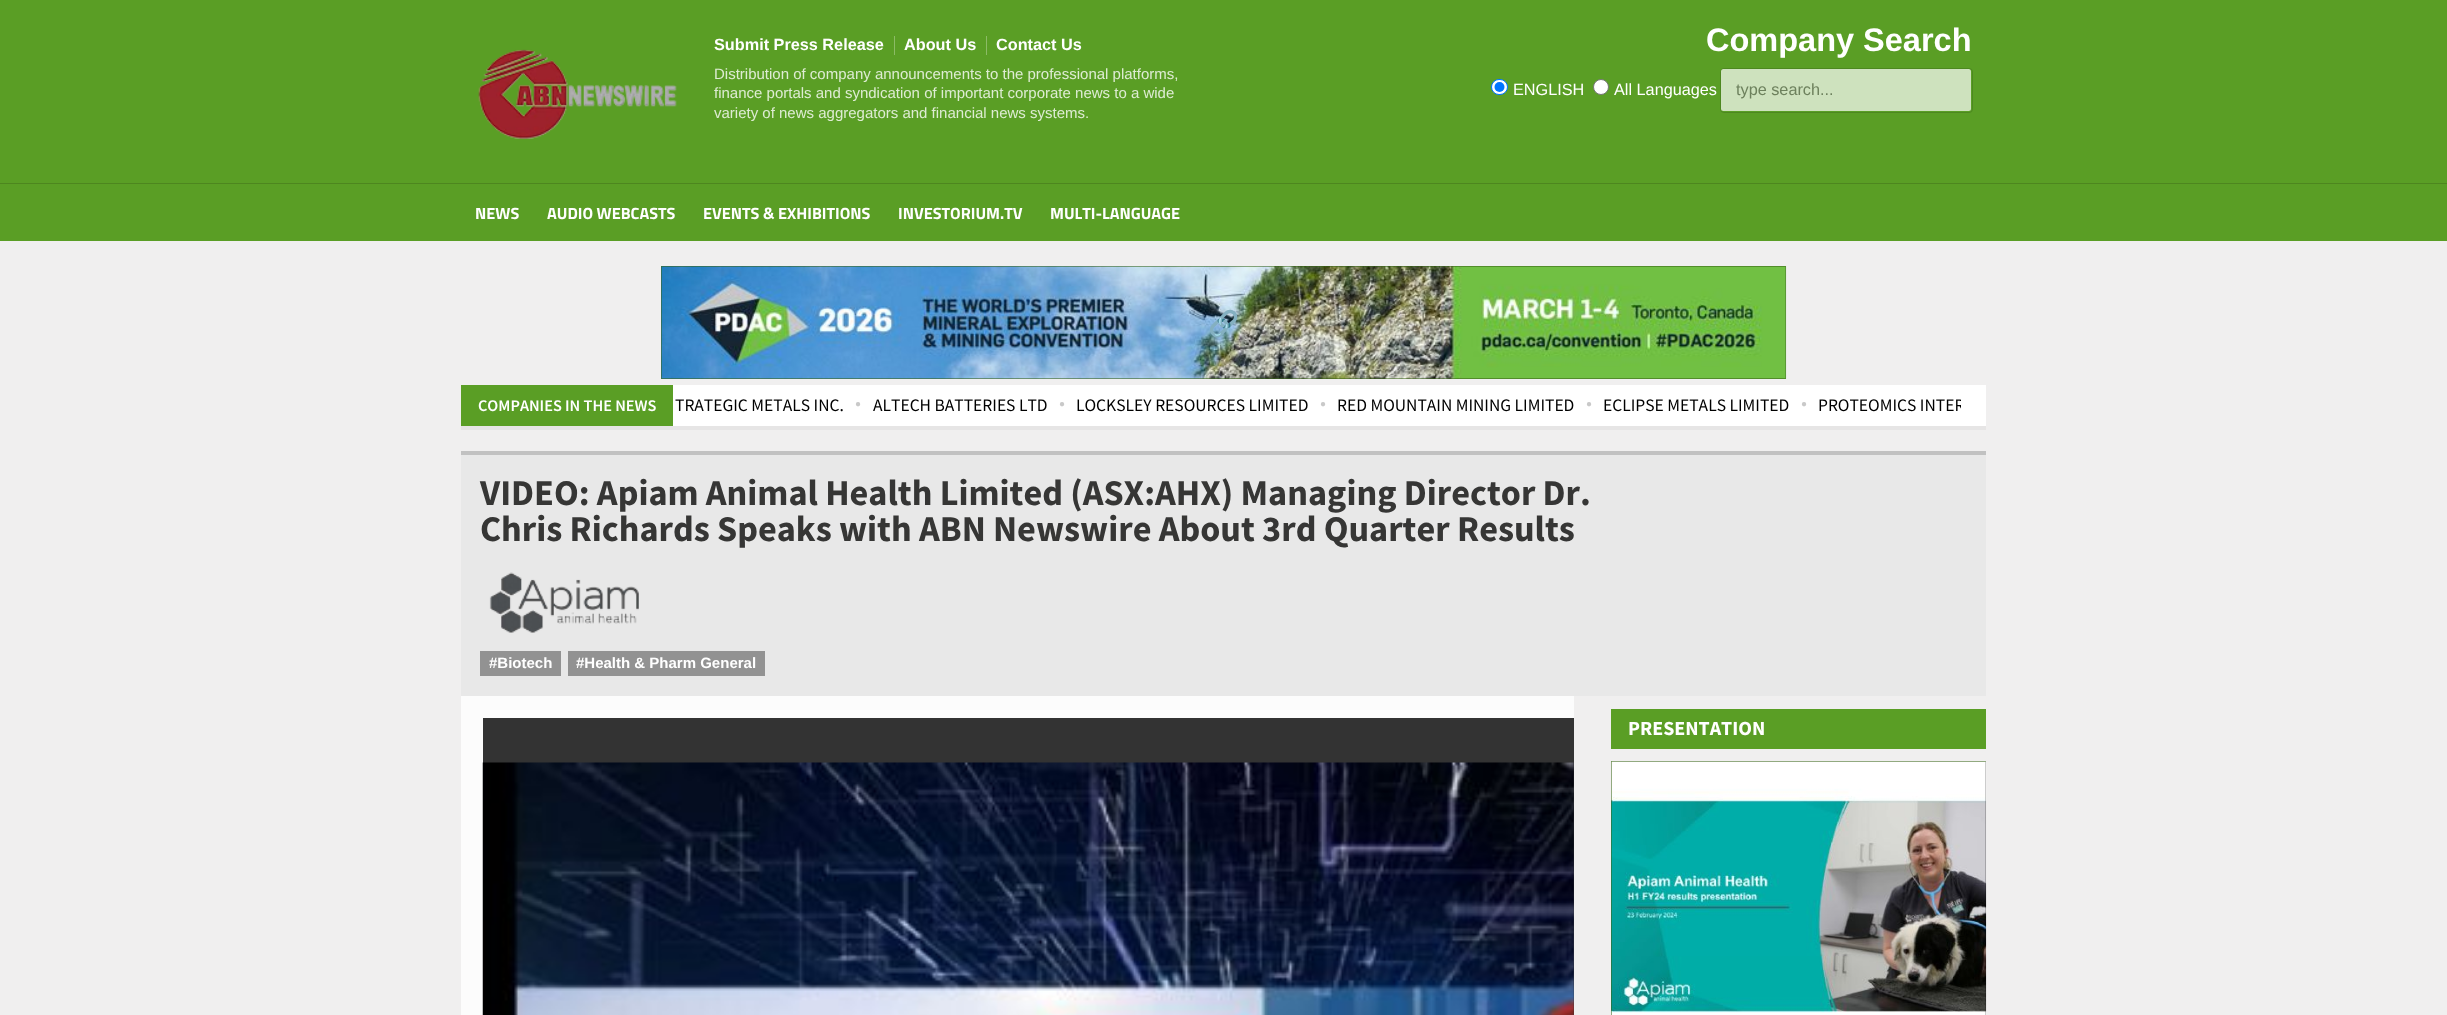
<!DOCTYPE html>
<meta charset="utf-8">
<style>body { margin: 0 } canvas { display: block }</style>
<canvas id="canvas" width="2447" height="1015"></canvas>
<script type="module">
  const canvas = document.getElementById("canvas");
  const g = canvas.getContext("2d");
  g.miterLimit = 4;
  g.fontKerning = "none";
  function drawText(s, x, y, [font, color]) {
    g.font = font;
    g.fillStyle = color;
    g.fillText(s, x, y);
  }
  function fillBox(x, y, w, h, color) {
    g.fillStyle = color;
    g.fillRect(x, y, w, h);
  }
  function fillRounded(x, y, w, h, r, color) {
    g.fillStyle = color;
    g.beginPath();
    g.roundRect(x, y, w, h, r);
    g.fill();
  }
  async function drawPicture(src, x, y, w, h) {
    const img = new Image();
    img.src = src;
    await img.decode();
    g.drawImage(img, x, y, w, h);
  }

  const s1 = ["bold 16.25px Liberation Sans", "#FFFFFF"];
  const s2 = ["15px Liberation Sans", "#DEECD3"];
  const s3 = ["bold 32.5px Liberation Sans", "#FFFFFF"];
  const s4 = ["16.25px Liberation Sans", "#FFFFFF"];
  const s5 = ["16.25px Liberation Sans", "#6D815D"];
  const s6 = ["bold 16.25px Titillium Web", "#FFFFFF"];
  const s7 = ["25px Noto Color Emoji", "#7798AC"];
  const s8 = ["17.5px Source Sans Pro", "#000000"];
  const s9 = ["600 16.25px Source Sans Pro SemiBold", "#FFFFFF"];
  const s10 = ["10px Liberation Serif", "#C9C9C9"];
  const s11 = ["bold 36.25px Source Sans Pro", "#363635"];
  const s12 = ["bold 15px Liberation Sans", "#FFFFFF"];
  const s13 = ["bold 20px Source Sans Pro", "#FFFFFF"];

  fillBox(0, 0, 2447, 1015, "#F0EFEF");
  fillBox(0, 0, 2447, 241, "#5A9E25");
  await drawPicture("pic1.png", 478, 49, 199, 90);
  drawText("Submit Press Release", 714, 50, s1);
  fillBox(894, 36, 1, 19, "#8CBB66");
  drawText("About Us", 904, 50, s1);
  fillBox(986, 36, 1, 19, "#8CBB66");
  drawText("Contact Us", 996, 50, s1);
  drawText("Distribution of company announcements to the professional platforms,", 714, 79, s2);
  drawText("finance portals and syndication of important corporate news to a wide", 714, 98, s2);
  drawText("variety of news aggregators and financial news systems.", 714, 118, s2);
  drawText("Company Search", 1706, 51, s3);
  g.beginPath();
  g.roundRect(1491.5, 79.5, 16, 15, 7.5);
  g.fill();
  g.strokeStyle = "#0075FF";
  g.stroke();
  g.fillStyle = "#0075FF";
  g.beginPath();
  g.arc(1499.5, 87, 5, 0, Math.PI * 2);
  g.fill();
  drawText("ENGLISH", 1513, 95, s4);
  g.beginPath();
  g.arc(1601, 87, 7.5, 0, Math.PI * 2);
  g.fill();
  g.strokeStyle = "#767676";
  g.stroke();
  drawText("All Languages", 1614, 95, s4);
  g.beginPath();
  g.roundRect(1720.5, 68.5, 252, 44, 3.5);
  g.strokeStyle = "#4D8820";
  g.stroke();
  fillRounded(1721, 69, 250, 42, 2.5, "#CEE2BE");
  drawText("type search...", 1736, 95, s5);
  fillBox(0, 183, 2447, 1, "#4D861F");
  drawText("NEWS", 475, 219, s6);
  drawText("AUDIO WEBCASTS", 547, 219, s6);
  drawText("EVENTS & EXHIBITIONS", 703, 219, s6);
  drawText("INVESTORIUM.TV", 898, 219, s6);
  drawText("MULTI-LANGUAGE", 1050, 219, s6);
  fillBox(661, 266, 1125, 113, "#5A9E25");
  await drawPicture("pic2.png", 661, 266, 1126, 113);
  g.strokeStyle = "rgba(0, 0, 0, 0.2)";
  g.strokeRect(661.5, 266.5, 1124, 112);
  drawText("🔗", 1208, 332, s7);
  g.fillStyle = "#E6E5E5";
  g.beginPath();
  g.moveTo(461, 389);
  g.lineTo(461, 430);
  g.lineTo(1986, 430);
  g.lineTo(1986, 426);
  g.lineTo(461, 426);
  g.closePath();
  g.fill();
  fillBox(673, 385, 1288, 41, "#FFFFFF");
  fillBox(461, 455, 1525, 241, "#E8E8E8");
  fillBox(461, 451, 1525, 4, "#C1C1C1");
  g.save();
  g.beginPath();
  g.rect(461, 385, 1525, 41);
  g.clip();
  g.fillStyle = "#FFFFFF";
  g.filter = "blur(12.5px)";
  g.beginPath();
  g.rect(1949, 385, 25, 41);
  g.fill();
  g.filter = "none";
  g.restore();
  drawText("PROTEOMICS INTER", 1818, 411, s8);
  fillBox(1961, 385, 25, 41, "#FFFFFF");
  fillBox(461, 385, 212, 41, "#5A9E25");
  drawText("COMPANIES IN THE NEWS", 478, 411, s9);
  drawText("TRATEGIC METALS INC.", 675, 411, s8);
  drawText("●", 855, 407, s10);
  drawText("ALTECH BATTERIES LTD", 873, 411, s8);
  drawText("●", 1059, 407, s10);
  drawText("LOCKSLEY RESOURCES LIMITED", 1076, 411, s8);
  drawText("●", 1320, 407, s10);
  drawText("RED MOUNTAIN MINING LIMITED", 1337, 411, s8);
  drawText("●", 1586, 407, s10);
  drawText("ECLIPSE METALS LIMITED", 1603, 411, s8);
  drawText("●", 1801, 407, s10);
  drawText("VIDEO: Apiam Animal Health Limited (ASX:AHX) Managing Director Dr.", 480, 505, s11);
  drawText("Chris Richards Speaks with ABN Newswire About 3rd Quarter Results", 480, 541, s11);
  await drawPicture("pic3.png", 489, 572, 150, 61);
  fillBox(480, 651, 81, 25, "#929292");
  drawText("#Biotech", 489, 668, s12);
  fillBox(568, 651, 197, 25, "#929292");
  drawText("#Health & Pharm General", 576, 668, s12);
  fillBox(461, 696, 1113, 319, "#FCFCFC");
  fillBox(483, 718, 1091, 297, "#333333");
  await drawPicture("pic4.png", 482, 762, 1092, 253);
  fillBox(1611, 709, 375, 40, "#5A9E25");
  drawText("PRESENTATION", 1628, 735, s13);
  fillBox(1611, 761, 375, 254, "#5A9E25");
  await drawPicture("pic5.png", 1611, 761, 376, 254);
  g.strokeRect(1611.5, 761.5, 374, 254);
</script>
